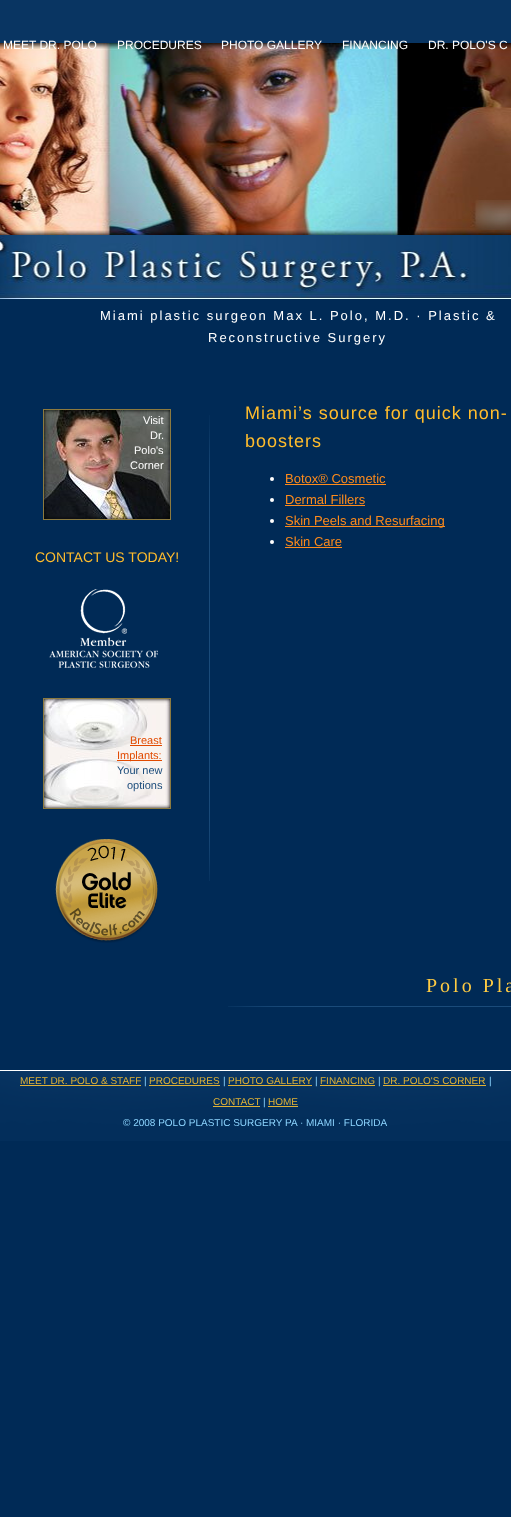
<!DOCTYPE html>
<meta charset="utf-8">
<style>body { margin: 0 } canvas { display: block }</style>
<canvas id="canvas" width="511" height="1517"></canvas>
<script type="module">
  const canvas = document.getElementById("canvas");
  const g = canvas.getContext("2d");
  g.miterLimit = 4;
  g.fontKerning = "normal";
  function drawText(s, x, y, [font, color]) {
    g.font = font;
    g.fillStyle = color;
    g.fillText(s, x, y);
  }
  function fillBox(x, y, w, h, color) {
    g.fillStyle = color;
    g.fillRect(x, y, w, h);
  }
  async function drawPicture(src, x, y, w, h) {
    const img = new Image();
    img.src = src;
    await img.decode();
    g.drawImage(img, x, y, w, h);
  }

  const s1 = ["12px Liberation Sans", "#FFFFFF"];
  const s2 = ["11px Liberation Sans", "#FFFFFF"];
  const s3 = ["14px Liberation Sans", "#FFBC2C"];
  const s4 = ["11px Liberation Sans", "#E14A00"];
  const s5 = ["11px Liberation Sans", "#1A4B7A"];
  const s6 = ["18px Liberation Sans", "#FFBC2C"];
  const s7 = ["13px Liberation Sans", "#FE8B1B"];
  const s8 = ["13px Liberation Sans", "#FFFFFF"];
  const s9 = ["20px Liberation Serif", "#FECB43"];
  const s10 = ["10px Liberation Sans", "#E0B236"];
  const s11 = ["10px Liberation Sans", "#8DD5FF"];

  fillBox(0, 0, 511, 1517, "#002A56");
  await drawPicture("pic1.png", 0, 0, 511, 43);
  await drawPicture("pic2.png", 0, 235, 511, 65);
  await drawPicture("pic8.png", 0, 43, 511, 192);
  drawText("MEET DR. POLO", 3, 49, s1);
  drawText("PROCEDURES", 117, 49, s1);
  drawText("PHOTO GALLERY", 221, 49, s1);
  drawText("FINANCING", 342, 49, s1);
  drawText("DR. POLO'S C", 428, 49, s1);
  await drawPicture("pic3.png", 44, 410, 126, 109);
  g.strokeStyle = "#8C7A3F";
  g.strokeRect(43.5, 409.5, 127, 110);
  drawText("Visit", 143, 424, s2);
  drawText("Dr.", 150, 439, s2);
  drawText("Polo's", 134, 454, s2);
  drawText("Corner", 130, 469, s2);
  drawText("CONTACT US TODAY!", 35, 562, s3);
  await drawPicture("pic4.png", 49, 589, 109, 79);
  await drawPicture("pic5.png", 44, 699, 126, 109);
  g.strokeRect(43.5, 698.5, 127, 110);
  drawText("Breast", 130, 744, s4);
  fillBox(130, 745, 32, 1, "#E14A00");
  fillBox(117, 760, 45, 1, "#E14A00");
  drawText("Implants:", 117, 759, s4);
  drawText("Your new", 117, 774, s5);
  drawText("options", 127, 789, s5);
  await drawPicture("pic6.png", 55, 839, 103, 104);
  await drawPicture("pic7.png", 209, 415, 1, 466);
  g.letterSpacing = "1px";
  drawText("Miami’s source for quick non-", 245, 419, s6);
  drawText("boosters", 245, 447, s6);
  g.fillStyle = "#FFFFFF";
  g.beginPath();
  g.arc(272, 479, 2, 0, Math.PI * 2);
  g.fill();
  g.letterSpacing = "0px";
  drawText("Botox® Cosmetic", 285, 483, s7);
  fillBox(285, 484, 101, 1, "#FE8B1B");
  g.fillStyle = "#FFFFFF";
  g.beginPath();
  g.arc(272, 500, 2, 0, Math.PI * 2);
  g.fill();
  drawText("Dermal Fillers", 285, 504, s7);
  fillBox(285, 505, 80, 1, "#FE8B1B");
  g.fillStyle = "#FFFFFF";
  g.beginPath();
  g.arc(272, 521, 2, 0, Math.PI * 2);
  g.fill();
  fillBox(285, 526, 160, 1, "#FE8B1B");
  drawText("Skin Peels and Resurfacing", 285, 525, s7);
  g.fillStyle = "#FFFFFF";
  g.beginPath();
  g.arc(272, 542, 2, 0, Math.PI * 2);
  g.fill();
  drawText("Skin Care", 285, 546, s7);
  fillBox(285, 547, 57, 1, "#FE8B1B");
  g.letterSpacing = "2px";
  drawText("Miami plastic surgeon Max L. Polo, M.D. · Plastic &", 100, 320, s8);
  drawText("Reconstructive Surgery", 208, 342, s8);
  await drawPicture("pic9.png", 0, 1070, 511, 71);
  g.letterSpacing = "3px";
  drawText("Polo Pla", 426, 992, s9);
  await drawPicture("pic10.png", 228, 1006, 283, 1);
  g.letterSpacing = "0px";
  drawText("MEET DR. POLO & STAFF", 20, 1084, s10);
  fillBox(20, 1085, 121, 1, "#E0B236");
  drawText("|", 144, 1084, s11);
  drawText("PROCEDURES", 149, 1084, s10);
  fillBox(149, 1085, 71, 1, "#E0B236");
  drawText("|", 223, 1084, s11);
  drawText("PHOTO GALLERY", 228, 1084, s10);
  fillBox(228, 1085, 84, 1, "#E0B236");
  drawText("|", 315, 1084, s11);
  drawText("FINANCING", 320, 1084, s10);
  fillBox(320, 1085, 55, 1, "#E0B236");
  drawText("|", 378, 1084, s11);
  drawText("DR. POLO'S CORNER", 383, 1084, s10);
  fillBox(383, 1085, 103, 1, "#E0B236");
  drawText("|", 489, 1084, s11);
  drawText("CONTACT", 213, 1105, s10);
  fillBox(213, 1106, 47, 1, "#E0B236");
  drawText("|", 263, 1105, s11);
  drawText("HOME", 268, 1105, s10);
  fillBox(268, 1106, 30, 1, "#E0B236");
  drawText("© 2008 POLO PLASTIC SURGERY PA · MIAMI · FLORIDA", 123, 1126, s11);
</script>
